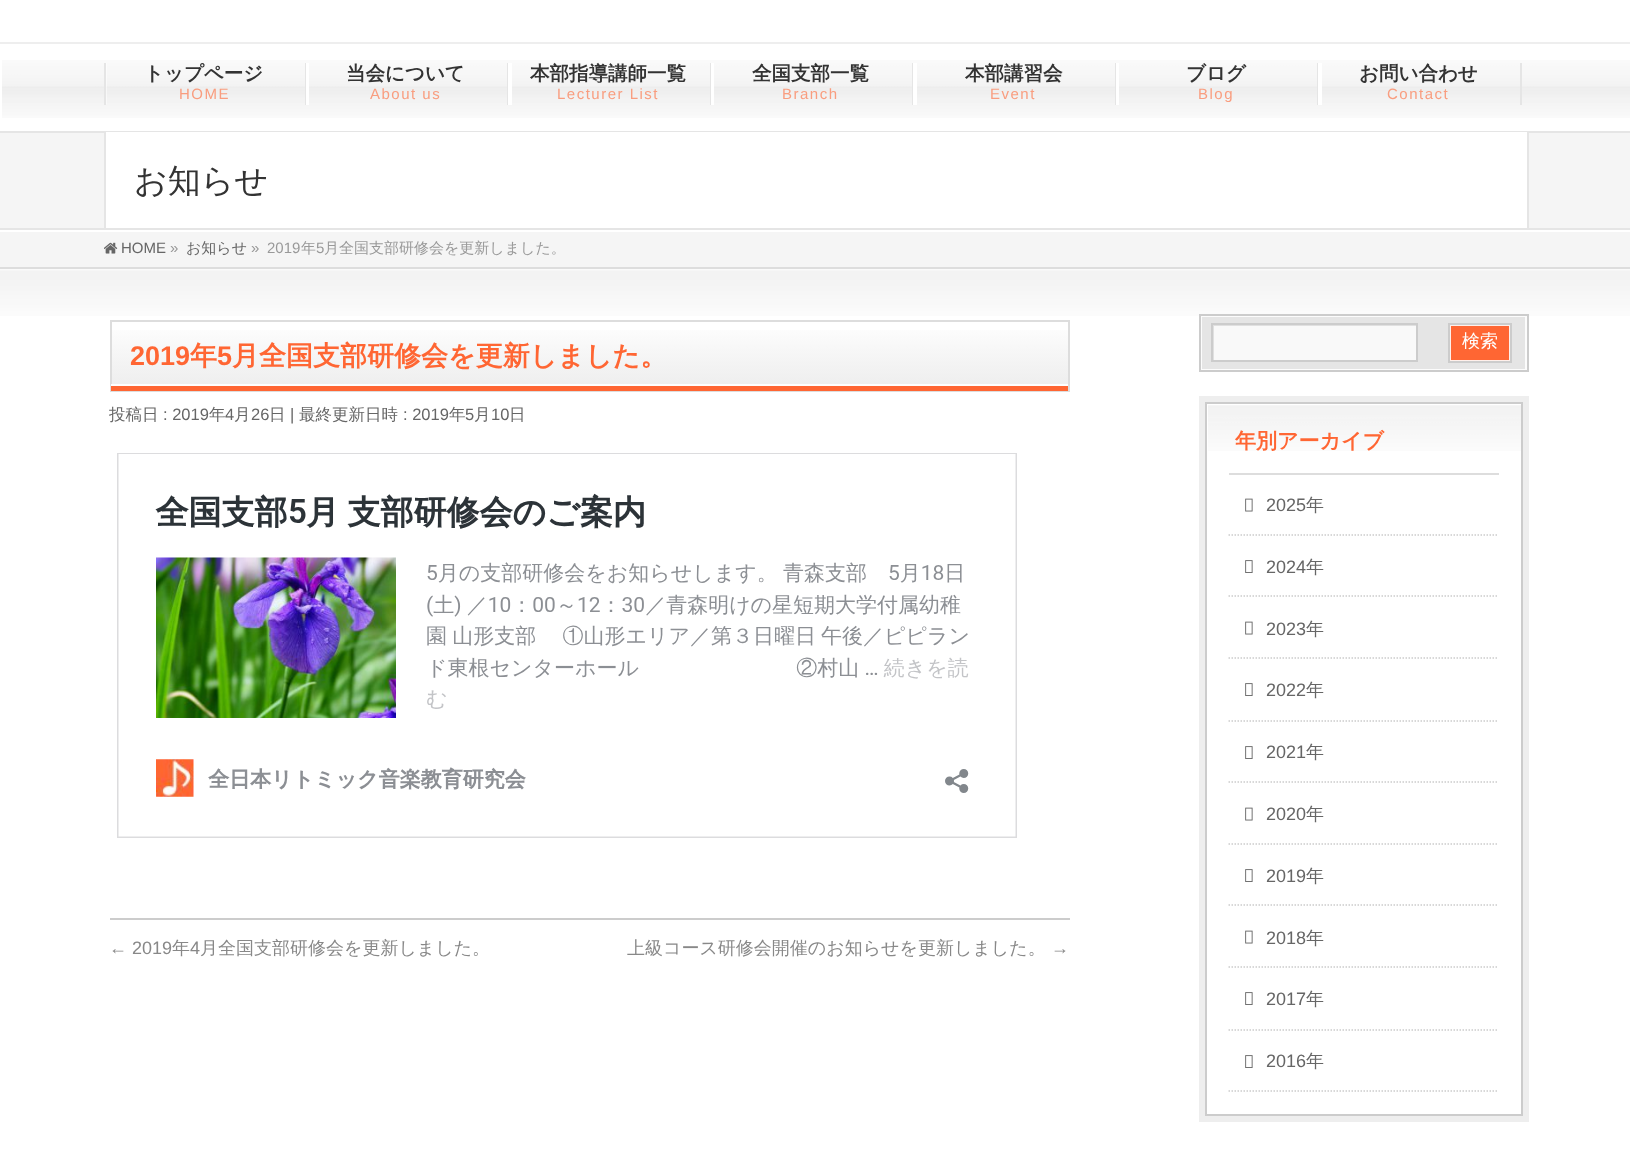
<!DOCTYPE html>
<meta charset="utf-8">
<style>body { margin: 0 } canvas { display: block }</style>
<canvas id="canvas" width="1630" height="1171"></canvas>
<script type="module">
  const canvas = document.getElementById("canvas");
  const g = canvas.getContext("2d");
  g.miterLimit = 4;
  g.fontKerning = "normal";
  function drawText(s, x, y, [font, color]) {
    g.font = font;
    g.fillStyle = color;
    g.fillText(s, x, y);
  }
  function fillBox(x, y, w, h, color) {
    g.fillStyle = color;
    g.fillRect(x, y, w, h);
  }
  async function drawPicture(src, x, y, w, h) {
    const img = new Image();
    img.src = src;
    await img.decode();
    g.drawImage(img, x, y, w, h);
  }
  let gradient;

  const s1 = ["bold 19.5px WenQuanYi Zen Hei", "#333333"];
  const s2 = ["15px Liberation Sans", "#F99D7F"];
  const s3 = ["500 33px WenQuanYi Zen Hei", "#333333"];
  const s4 = ["15px Liberation Sans", "#666666"];
  const s5 = ["15px Liberation Sans", "#999999"];
  const s6 = ["500 15px WenQuanYi Zen Hei", "#666666"];
  const s7 = ["500 15px WenQuanYi Zen Hei", "#999999"];
  const s8 = ["bold 27px Liberation Sans", "#FF6633"];
  const s9 = ["bold 27px WenQuanYi Zen Hei", "#FF6633"];
  const s10 = ["500 16.5px WenQuanYi Zen Hei", "#666666"];
  const s11 = ["16.5px Liberation Sans", "#666666"];
  const s12 = ["18px Liberation Sans", "#888888"];
  const s13 = ["500 18px WenQuanYi Zen Hei", "#888888"];
  const s14 = ["500 18px WenQuanYi Zen Hei", "#FFFFFF"];
  const s15 = ["bold 21px WenQuanYi Zen Hei", "#FF6633"];
  const s16 = ["18px Liberation Sans", "#666666"];
  const s17 = ["500 18px WenQuanYi Zen Hei", "#666666"];

  fillBox(0, 0, 1630, 1171, "#FFFFFF");
  await drawPicture("pic1.png", 2, 60, 1628, 58);
  fillBox(0, 42, 1630, 2, "#EEEEEE");
  await drawPicture("pic2.png", 106, 63, 1, 42);
  fillBox(305, 63, 1, 42, "#E5E5E5");
  fillBox(104, 63, 2, 42, "#E5E5E5");
  drawText("トップページ", 144, 80, s1);
  g.letterSpacing = "1.5px";
  drawText("HOME", 179, 99, s2);
  fillBox(306, 63, 3, 42, "#FFFFFF");
  fillBox(507, 63, 1, 42, "#E5E5E5");
  g.letterSpacing = "0px";
  drawText("当会について", 346, 80, s1);
  g.letterSpacing = "1.5px";
  drawText("About us", 370, 99, s2);
  fillBox(508, 63, 4, 42, "#FFFFFF");
  fillBox(710, 63, 1, 42, "#E5E5E5");
  g.letterSpacing = "0px";
  drawText("本部指導講師一覧", 530, 80, s1);
  g.letterSpacing = "1.5px";
  drawText("Lecturer List", 557, 99, s2);
  fillBox(711, 63, 3, 42, "#FFFFFF");
  fillBox(912, 63, 1, 42, "#E5E5E5");
  g.letterSpacing = "0px";
  drawText("全国支部一覧", 752, 80, s1);
  g.letterSpacing = "1.5px";
  drawText("Branch", 782, 99, s2);
  fillBox(913, 63, 4, 42, "#FFFFFF");
  fillBox(1115, 63, 1, 42, "#E5E5E5");
  g.letterSpacing = "0px";
  drawText("本部講習会", 965, 80, s1);
  g.letterSpacing = "1.5px";
  drawText("Event", 990, 99, s2);
  fillBox(1116, 63, 3, 42, "#FFFFFF");
  fillBox(1317, 63, 1, 42, "#E5E5E5");
  g.letterSpacing = "0px";
  drawText("ブログ", 1186, 80, s1);
  g.letterSpacing = "1.5px";
  drawText("Blog", 1198, 99, s2);
  fillBox(1318, 63, 4, 42, "#FFFFFF");
  fillBox(1520, 63, 2, 42, "#E5E5E5");
  g.letterSpacing = "0px";
  drawText("お問い合わせ", 1359, 80, s1);
  g.letterSpacing = "1.5px";
  drawText("Contact", 1387, 99, s2);
  fillBox(0, 133, 1630, 95, "#F5F5F5");
  fillBox(0, 131, 1630, 2, "#E5E5E5");
  fillBox(0, 228, 1630, 2, "#E5E5E5");
  fillBox(106, 132, 1421, 96, "#FFFFFF");
  fillBox(1527, 132, 2, 96, "#E5E5E5");
  fillBox(104, 132, 2, 96, "#E5E5E5");
  g.letterSpacing = "0px";
  drawText("お知らせ", 134, 192, s3);
  fillBox(0, 232, 1630, 35, "#F5F5F5");
  fillBox(0, 267, 1630, 2, "#DDDDDD");
  await drawPicture("pic3.png", 104, 242, 14, 12);
  drawText("HOME", 121, 253, s4);
  drawText("»", 170, 253, s5);
  drawText("お知らせ", 186, 253, s6);
  drawText("»", 251, 253, s5);
  drawText("2019", 267, 253, s5);
  drawText("年", 301, 253, s7);
  drawText("5", 316, 253, s5);
  drawText("月全国支部研修会を更新しました。", 324, 253, s7);
  await drawPicture("pic4.png", 0, 269, 1630, 47);
  gradient = g.createLinearGradient(590, 321, 590, 390);
  gradient.addColorStop(0, "#FFFFFF");
  gradient.addColorStop(0.47, "#F6F6F6");
  gradient.addColorStop(1, "#EDEDED");
  g.fillStyle = gradient;
  g.fillRect(112, 330, 956, 54);
  g.strokeStyle = "#DDDDDD";
  g.lineWidth = 2;
  g.strokeRect(111, 321, 958, 70);
  drawText("2019", 130, 365, s8);
  drawText("年", 190, 365, s9);
  drawText("5", 217, 365, s8);
  drawText("月全国支部研修会を更新しました。", 232, 365, s9);
  fillBox(111, 384, 1, 2, "#FFFFFF");
  fillBox(111, 386, 957, 5, "#FF6633");
  drawText("投稿日", 109, 420, s10);
  drawText(": 2019", 163, 420, s11);
  drawText("年", 209, 420, s10);
  drawText("4", 225, 420, s11);
  drawText("月", 234, 420, s10);
  drawText("26", 251, 420, s11);
  drawText("日", 269, 420, s10);
  drawText("|", 290, 420, s11);
  drawText("最終更新日時", 299, 420, s10);
  drawText(": 2019", 403, 420, s11);
  drawText("年", 449, 420, s10);
  drawText("5", 465, 420, s11);
  drawText("月", 474, 420, s10);
  drawText("10", 491, 420, s11);
  drawText("日", 509, 420, s10);
  await drawPicture("pic5.png", 117, 453, 900, 385);
  fillBox(110, 918, 960, 2, "#CCCCCC");
  drawText("← 2019", 109, 954, s12);
  drawText("年", 172, 954, s13);
  drawText("4", 190, 954, s12);
  drawText("月全国支部研修会を更新しました。", 200, 954, s13);
  drawText("上級コース研修会開催のお知らせを更新しました。", 627, 954, s13);
  drawText("→", 1051, 954, s12);
  g.fillStyle = "#E5E5E5";
  g.beginPath();
  g.rect(1201, 316, 325, 54);
  g.fill();
  g.strokeStyle = "#FCFCFC";
  g.stroke();
  g.strokeStyle = "#CCCCCC";
  g.strokeRect(1200, 315, 328, 56);
  fillBox(1214, 326, 202, 34, "#F9F9F9");
  g.save();
  g.beginPath();
  g.rect(1212, 324, 204, 36);
  g.clip();
  g.fillStyle = "#E0E0E0";
  g.beginPath();
  g.moveTo(1064, 176);
  g.lineTo(1564, 176);
  g.lineTo(1564, 508);
  g.lineTo(1064, 508);
  g.closePath();
  g.moveTo(1214, 326);
  g.lineTo(1418, 326);
  g.lineTo(1418, 362);
  g.lineTo(1214, 362);
  g.closePath();
  g.fill("evenodd");
  g.restore();
  g.strokeRect(1212, 324, 205, 37);
  g.fillStyle = "#FF6633";
  g.beginPath();
  g.rect(1450, 325, 60, 36);
  g.fill();
  g.strokeStyle = "#FFF0EB";
  g.stroke();
  g.strokeStyle = "#CCCCCC";
  g.strokeRect(1449, 324, 62, 38);
  drawText("検索", 1462, 347, s14);
  await drawPicture("pic6.png", 1208, 405, 313, 46);
  g.strokeRect(1206, 403, 316, 712);
  g.beginPath();
  g.moveTo(1228.5, 535);
  g.lineTo(1498.5, 535);
  g.lineWidth = 1.5;
  g.setLineDash([1.5, 1.5]);
  g.stroke();
  g.beginPath();
  g.moveTo(1228.5, 596);
  g.lineTo(1498.5, 596);
  g.stroke();
  g.beginPath();
  g.moveTo(1228.5, 658);
  g.lineTo(1498.5, 658);
  g.stroke();
  g.beginPath();
  g.moveTo(1228.5, 721);
  g.lineTo(1498.5, 721);
  g.stroke();
  g.beginPath();
  g.moveTo(1228.5, 782);
  g.lineTo(1498.5, 782);
  g.stroke();
  g.beginPath();
  g.moveTo(1228.5, 844);
  g.lineTo(1498.5, 844);
  g.stroke();
  g.beginPath();
  g.moveTo(1228.5, 905);
  g.lineTo(1498.5, 905);
  g.stroke();
  g.beginPath();
  g.moveTo(1228.5, 967);
  g.lineTo(1498.5, 967);
  g.stroke();
  g.beginPath();
  g.moveTo(1228.5, 1030);
  g.lineTo(1498.5, 1030);
  g.stroke();
  g.beginPath();
  g.moveTo(1228.5, 1091);
  g.lineTo(1498.5, 1091);
  g.stroke();
  g.strokeStyle = "#EEEEEE";
  g.lineWidth = 6;
  g.setLineDash([]);
  g.strokeRect(1202, 399, 324, 720);
  fillBox(1229, 473, 270, 2, "#DDDDDD");
  drawText("年別アーカイブ", 1235, 448, s15);
  await drawPicture("pic7.png", 1245, 498, 8, 14);
  drawText("2025", 1266, 511, s16);
  drawText("年", 1306, 511, s17);
  await drawPicture("pic8.png", 1245, 560, 8, 13);
  drawText("2024", 1266, 573, s16);
  drawText("年", 1306, 573, s17);
  await drawPicture("pic7.png", 1245, 621, 8, 14);
  drawText("2023", 1266, 635, s16);
  drawText("年", 1306, 635, s17);
  await drawPicture("pic8.png", 1245, 683, 8, 13);
  drawText("2022", 1266, 696, s16);
  drawText("年", 1306, 696, s17);
  await drawPicture("pic8.png", 1245, 746, 8, 13);
  drawText("2021", 1266, 758, s16);
  drawText("年", 1306, 758, s17);
  await drawPicture("pic7.png", 1245, 807, 8, 14);
  drawText("2020", 1266, 820, s16);
  drawText("年", 1306, 820, s17);
  await drawPicture("pic8.png", 1245, 869, 8, 13);
  drawText("2019", 1266, 882, s16);
  drawText("年", 1306, 882, s17);
  await drawPicture("pic7.png", 1245, 930, 8, 14);
  drawText("2018", 1266, 944, s16);
  drawText("年", 1306, 944, s17);
  await drawPicture("pic8.png", 1245, 992, 8, 13);
  drawText("2017", 1266, 1005, s16);
  drawText("年", 1306, 1005, s17);
  await drawPicture("pic8.png", 1245, 1055, 8, 13);
  drawText("2016", 1266, 1067, s16);
  drawText("年", 1306, 1067, s17);
</script>
